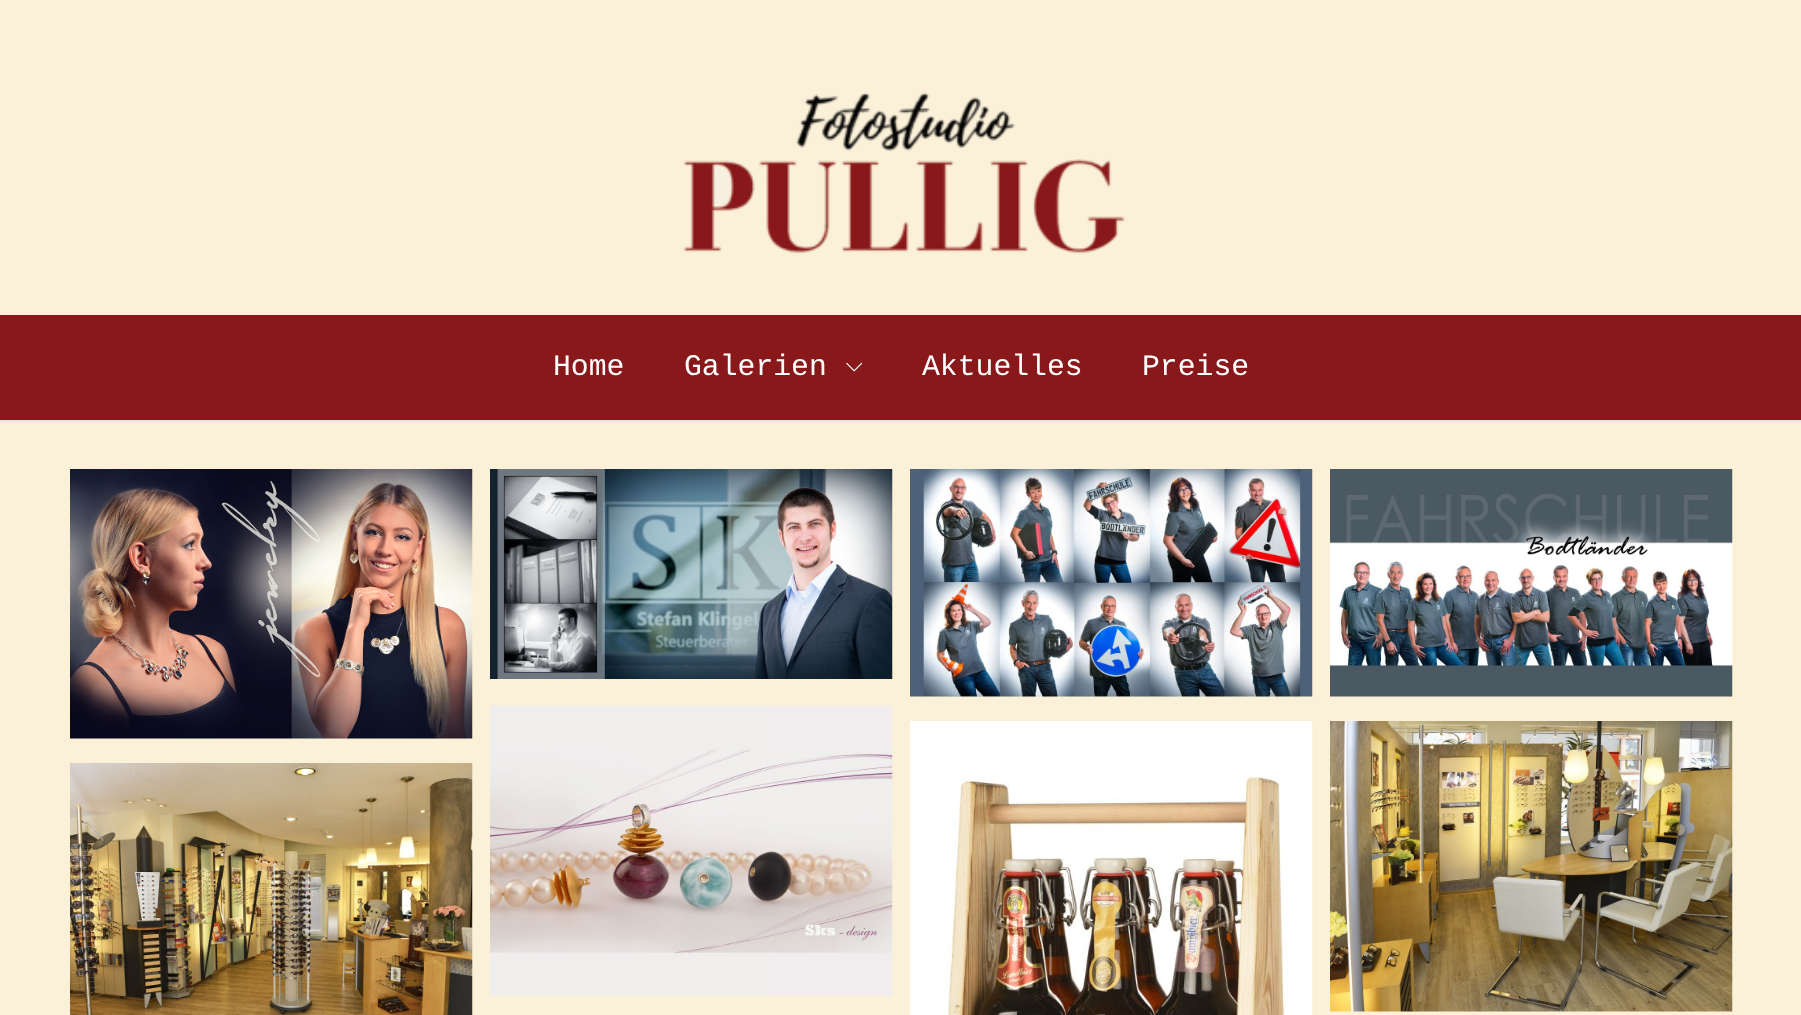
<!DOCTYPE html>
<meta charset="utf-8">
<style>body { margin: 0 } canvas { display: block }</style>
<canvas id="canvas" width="1801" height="1015"></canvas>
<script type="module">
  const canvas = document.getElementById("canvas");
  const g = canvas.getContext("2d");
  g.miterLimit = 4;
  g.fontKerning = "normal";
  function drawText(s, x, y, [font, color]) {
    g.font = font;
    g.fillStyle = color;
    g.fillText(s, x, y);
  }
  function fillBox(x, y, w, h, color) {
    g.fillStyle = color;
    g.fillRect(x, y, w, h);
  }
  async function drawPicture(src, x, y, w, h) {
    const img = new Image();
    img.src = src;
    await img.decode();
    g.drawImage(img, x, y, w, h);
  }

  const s1 = ["29.75px Liberation Mono", "#FFFFFF"];

  fillBox(0, 0, 1801, 1015, "#FBF1D9");
  await drawPicture("pic1.png", 683, 92, 443, 162);
  fillBox(0, 315, 1801, 105, "#89181A");
  fillBox(0, 420, 1801, 2, "#E5E5E5");
  drawText("Home", 553, 375, s1);
  drawText("Galerien", 684, 375, s1);
  await drawPicture("pic2.png", 846, 362, 17, 10);
  drawText("Aktuelles", 922, 375, s1);
  drawText("Preise", 1142, 375, s1);
  await drawPicture("pic3.png", 70, 469, 403, 270);
  await drawPicture("pic4.png", 490, 469, 403, 210);
  await drawPicture("pic5.png", 910, 469, 403, 228);
  await drawPicture("pic6.png", 1330, 469, 403, 228);
  await drawPicture("pic7.png", 70, 763, 403, 252);
  await drawPicture("pic8.png", 490, 705, 403, 291);
  await drawPicture("pic9.png", 910, 721, 403, 294);
  await drawPicture("pic10.png", 1330, 721, 403, 291);
</script>
